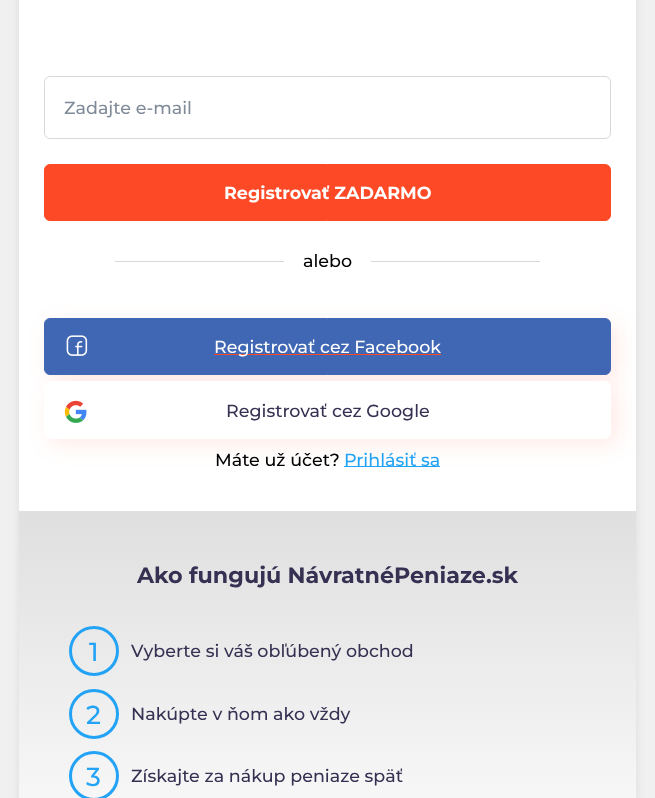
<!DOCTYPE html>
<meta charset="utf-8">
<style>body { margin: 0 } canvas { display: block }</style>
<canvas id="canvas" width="655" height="798"></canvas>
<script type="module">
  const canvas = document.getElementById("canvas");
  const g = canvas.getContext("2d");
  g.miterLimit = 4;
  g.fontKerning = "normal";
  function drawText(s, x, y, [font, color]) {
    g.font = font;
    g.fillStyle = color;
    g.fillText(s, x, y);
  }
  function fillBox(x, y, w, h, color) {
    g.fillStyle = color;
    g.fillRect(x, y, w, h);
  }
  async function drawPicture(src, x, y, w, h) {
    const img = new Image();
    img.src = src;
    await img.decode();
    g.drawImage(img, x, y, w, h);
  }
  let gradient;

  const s1 = ["500 17.5px Montserrat", "#808B99"];
  const s2 = ["bold 17.5px Montserrat", "#FFFFFF"];
  const s3 = ["500 17.5px Montserrat", "#000000"];
  const s4 = ["500 17.5px Montserrat", "#FFFFFF"];
  const s5 = ["500 17.5px Montserrat", "#363152"];
  const s6 = ["500 17.5px Montserrat", "#23A3F5"];
  const s7 = ["bold 22.25px Montserrat", "#363152"];
  const s8 = ["500 26px Montserrat", "#23A3F5"];

  fillBox(0, 0, 655, 798, "#F0F0F0");
  g.fillStyle = "rgba(0, 0, 0, 0.08)";
  g.filter = "blur(5px)";
  g.beginPath();
  g.roundRect(19, -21, 617, 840, 6);
  g.fill();
  g.filter = "none";
  fillBox(19, 0, 617, 511, "#FFFFFF");
  g.beginPath();
  g.roundRect(44.5, 76.5, 566, 62, 5.5);
  g.strokeStyle = "#D5D9DD";
  g.stroke();
  drawText("Zadajte e-mail", 64, 114, s1);
  g.fillStyle = "#FD4926";
  g.beginPath();
  g.roundRect(44.5, 164.5, 566, 56, 5.5);
  g.fill();
  g.strokeStyle = "#FD4926";
  g.stroke();
  drawText("Registrovať ZADARMO", 224, 199, s2);
  fillBox(115, 261, 425, 1, "#D5D9DD");
  fillBox(284, 261, 87, 1, "#FFFFFF");
  drawText("alebo", 303, 267, s3);
  g.fillStyle = "rgba(253, 73, 38, 0.11)";
  g.filter = "blur(10.5px)";
  g.beginPath();
  g.roundRect(50, 324, 568, 57, 6);
  g.fill();
  g.filter = "none";
  g.fillStyle = "#4067B4";
  g.beginPath();
  g.roundRect(44.5, 318.5, 566, 56, 5.5);
  g.fill();
  g.strokeStyle = "#4067B4";
  g.stroke();
  g.fillStyle = "rgba(253, 73, 38, 0.11)";
  g.filter = "blur(10.5px)";
  g.beginPath();
  g.roundRect(50, 388, 568, 57, 6);
  g.fill();
  g.filter = "none";
  await drawPicture("pic1.png", 66, 335, 22, 21);
  fillBox(214, 354, 227, 1, "#FD4926");
  drawText("Registrovať cez Facebook", 214, 353, s4);
  g.beginPath();
  g.roundRect(44.5, 381.5, 566, 57, 5.5);
  g.fill();
  g.strokeStyle = "#FFFFFF";
  g.stroke();
  await drawPicture("pic2.png", 64, 400, 23, 23);
  drawText("Registrovať cez Google", 226, 417, s5);
  drawText("Máte už účet?", 215, 466, s3);
  fillBox(344, 466, 96, 1, "#23A3F5");
  drawText("Prihlásiť sa", 344, 466, s6);
  gradient = g.createLinearGradient(328, 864, 328, 88);
  gradient.addColorStop(0, "#FCFCFC");
  gradient.addColorStop(1, "#BDBDBD");
  g.fillStyle = gradient;
  g.fillRect(19, 511, 617, 287);
  drawText("Ako fungujú NávratnéPeniaze.sk", 137, 583, s7);
  g.beginPath();
  g.arc(94, 651, 23.5, 0, Math.PI * 2);
  g.strokeStyle = "#23A3F5";
  g.lineWidth = 3;
  g.stroke();
  drawText("1", 89, 661, s8);
  drawText("Vyberte si váš obľúbený obchod", 131, 657, s5);
  g.beginPath();
  g.arc(94, 714, 23.5, 0, Math.PI * 2);
  g.stroke();
  drawText("2", 86, 724, s8);
  drawText("Nakúpte v ňom ako vždy", 131, 720, s5);
  g.beginPath();
  g.arc(94, 776, 23.5, 0, Math.PI * 2);
  g.stroke();
  drawText("3", 86, 786, s8);
  drawText("Získajte za nákup peniaze späť", 131, 782, s5);
</script>
